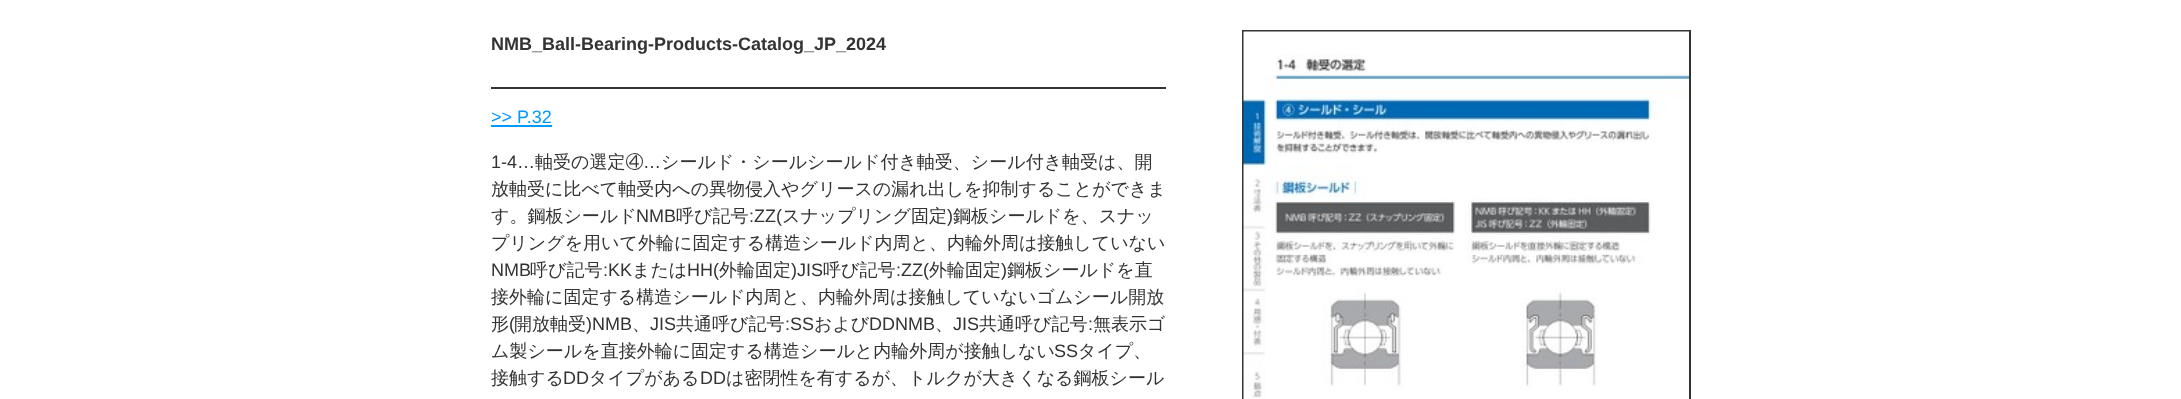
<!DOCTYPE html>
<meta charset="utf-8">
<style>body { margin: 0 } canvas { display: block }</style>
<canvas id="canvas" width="2181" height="399"></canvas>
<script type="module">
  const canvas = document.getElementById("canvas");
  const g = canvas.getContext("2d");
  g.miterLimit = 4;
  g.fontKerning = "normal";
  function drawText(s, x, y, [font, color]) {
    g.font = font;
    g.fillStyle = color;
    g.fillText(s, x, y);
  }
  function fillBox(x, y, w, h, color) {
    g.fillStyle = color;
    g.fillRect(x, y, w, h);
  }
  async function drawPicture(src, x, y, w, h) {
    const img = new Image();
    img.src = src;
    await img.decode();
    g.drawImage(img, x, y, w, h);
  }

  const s1 = ["bold 18px Liberation Sans", "#333333"];
  const s2 = ["18px Liberation Sans", "#0099FF"];
  const s3 = ["18px Liberation Sans", "#333333"];
  const s4 = ["500 18px WenQuanYi Zen Hei", "#333333"];

  fillBox(0, 0, 2181, 399, "#FFFFFF");
  drawText("NMB_Ball-Bearing-Products-Catalog_JP_2024", 491, 50, s1);
  fillBox(491, 87, 675, 2, "#333333");
  drawText(">> P.32", 491, 123, s2);
  fillBox(491, 125, 61, 2, "#0099FF");
  drawText("1-4…", 491, 168, s3);
  drawText("軸受の選定④", 535, 168, s4);
  drawText("…", 643, 168, s3);
  drawText("シールド・シールシールド付き軸受、シール付き軸受は、開", 661, 168, s4);
  drawText("放軸受に比べて軸受内への異物侵入やグリースの漏れ出しを抑制することができま", 491, 195, s4);
  drawText("す。鋼板シールド", 491, 222, s4);
  drawText("NMB", 636, 222, s3);
  drawText("呼び記号", 676, 222, s4);
  drawText(":ZZ(", 749, 222, s3);
  drawText("スナップリング固定", 782, 222, s4);
  drawText(")", 947, 222, s3);
  drawText("鋼板シールドを、スナッ", 953, 222, s4);
  drawText("プリングを用いて外輪に固定する構造シールド内周と、内輪外周は接触していない", 491, 249, s4);
  drawText("NMB", 491, 276, s3);
  drawText("呼び記号", 530, 276, s4);
  drawText(":KK", 603, 276, s3);
  drawText("または", 632, 276, s4);
  drawText("HH(", 687, 276, s3);
  drawText("外輪固定", 719, 276, s4);
  drawText(")JIS", 791, 276, s3);
  drawText("呼び記号", 823, 276, s4);
  drawText(":ZZ(", 896, 276, s3);
  drawText("外輪固定", 929, 276, s4);
  drawText(")", 1001, 276, s3);
  drawText("鋼板シールドを直", 1007, 276, s4);
  drawText("接外輪に固定する構造シールド内周と、内輪外周は接触していないゴムシール開放", 491, 303, s4);
  drawText("形", 491, 330, s4);
  drawText("(", 509, 330, s3);
  drawText("開放軸受", 514, 330, s4);
  drawText(")NMB", 586, 330, s3);
  drawText("JIS", 650, 330, s3);
  drawText("共通呼び記号", 676, 330, s4);
  drawText(":SS", 785, 330, s3);
  drawText("および", 814, 330, s4);
  drawText("DDNMB", 869, 330, s3);
  drawText("JIS", 953, 330, s3);
  drawText("共通呼び記号", 979, 330, s4);
  drawText(":", 1088, 330, s3);
  drawText("無表示ゴ", 1093, 330, s4);
  drawText("、", 632, 330, s4);
  drawText("、", 935, 330, s4);
  drawText("ム製シールを直接外輪に固定する構造シールと内輪外周が接触しない", 491, 357, s4);
  drawText("SS", 1054, 357, s3);
  drawText("タイプ、", 1078, 357, s4);
  drawText("接触する", 491, 384, s4);
  drawText("DD", 563, 384, s3);
  drawText("タイプがある", 589, 384, s4);
  drawText("DD", 700, 384, s3);
  drawText("は密閉性を有するが、トルクが大きくなる鋼板シール", 726, 384, s4);
  g.strokeStyle = "#333333";
  g.lineWidth = 2;
  g.strokeRect(1243, 31, 447, 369);
  await drawPicture("pic1.png", 1243, 31, 446, 368);
</script>
